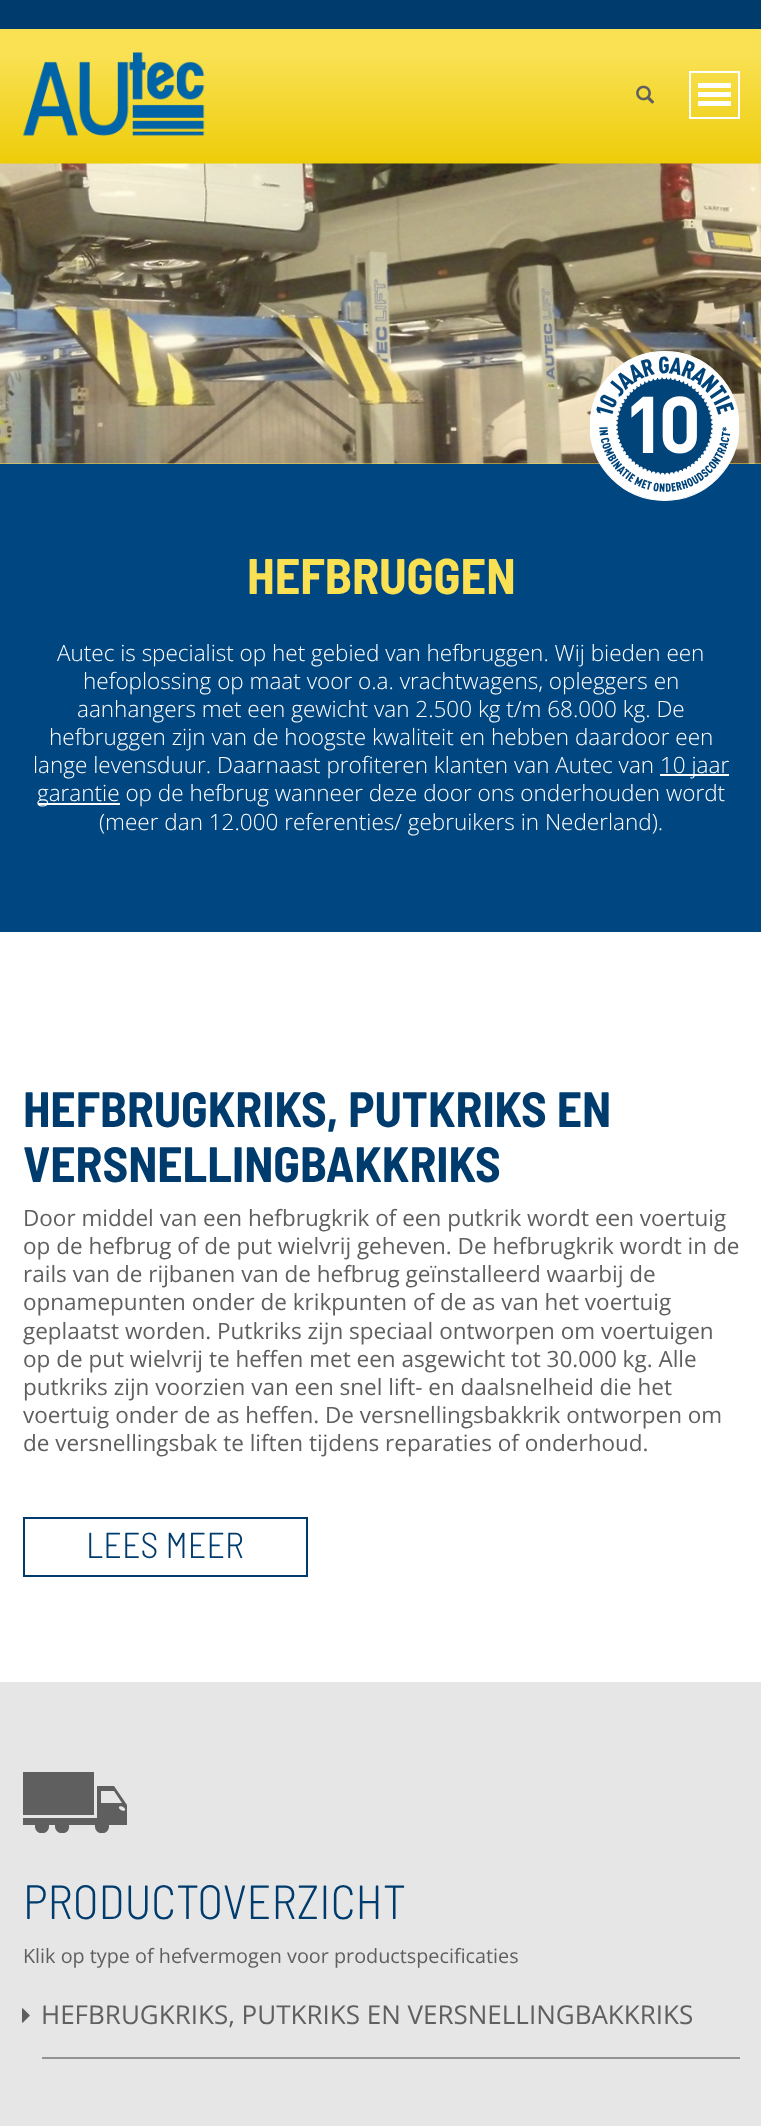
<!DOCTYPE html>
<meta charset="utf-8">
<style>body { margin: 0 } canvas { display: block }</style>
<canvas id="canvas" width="761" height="2126"></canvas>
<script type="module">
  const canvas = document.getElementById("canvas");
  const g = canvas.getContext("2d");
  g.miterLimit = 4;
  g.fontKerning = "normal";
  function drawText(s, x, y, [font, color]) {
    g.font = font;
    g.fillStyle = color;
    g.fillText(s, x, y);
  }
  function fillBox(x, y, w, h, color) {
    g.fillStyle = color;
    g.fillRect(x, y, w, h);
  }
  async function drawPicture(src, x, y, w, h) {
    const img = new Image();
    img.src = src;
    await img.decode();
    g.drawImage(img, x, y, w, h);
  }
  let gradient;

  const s1 = ["bold 50px Barlow Semi Condensed", "#F9E153"];
  const s2 = ["300 22.5px Open Sans", "#FFFFFF"];
  const s3 = ["bold 49.5px Barlow Semi Condensed", "#003B6D"];
  const s4 = ["22.5px Open Sans", "#5F5F5F"];
  const s5 = ["300 36px Barlow Semi Condensed", "#003B6D"];
  const s6 = ["300 48px Barlow Semi Condensed", "#003B6D"];
  const s7 = ["19.8px Open Sans", "#5F5F5F"];
  const s8 = ["26px Open Sans", "#5F5F5F"];

  fillBox(0, 0, 761, 2126, "#FFFFFF");
  fillBox(0, 0, 761, 29, "#003B6D");
  gradient = g.createLinearGradient(381, 28, 381, 164);
  gradient.addColorStop(0.2, "#F9E153");
  gradient.addColorStop(1, "#EDCC08");
  g.fillStyle = gradient;
  g.fillRect(0, 29, 761, 135);
  await drawPicture("pic1.png", 23, 52, 182, 84);
  await drawPicture("pic2.png", 636, 85, 19, 19);
  g.strokeStyle = "#FFFFFF";
  g.lineWidth = 2;
  g.strokeRect(690, 72, 49, 46);
  fillBox(698, 83, 33, 5, "#FFFFFF");
  fillBox(698, 92, 33, 5, "#FFFFFF");
  fillBox(698, 101, 33, 5, "#FFFFFF");
  fillBox(0, 164, 761, 300, "#F9E153");
  await drawPicture("pic3.png", 0, 163, 761, 301);
  fillBox(0, 464, 761, 468, "#004681");
  await drawPicture("pic4.png", 590, 351, 150, 150);
  drawText("HEFBRUGGEN", 247, 594, s1);
  drawText("Autec is specialist op het gebied van hefbruggen. Wij bieden een", 57, 661, s2);
  drawText("hefoplossing op maat voor o.a. vrachtwagens, opleggers en", 83, 689, s2);
  drawText("aanhangers met een gewicht van 2.500 kg t/m 68.000 kg. De", 77, 717, s2);
  drawText("hefbruggen zijn van de hoogste kwaliteit en hebben daardoor een", 49, 745, s2);
  drawText("lange levensduur. Daarnaast profiteren klanten van Autec van", 33, 773, s2);
  fillBox(660, 774, 69, 2, "#FFFFFF");
  drawText("10 jaar", 660, 773, s2);
  fillBox(38, 803, 82, 2, "#FFFFFF");
  drawText("garantie op de hefbrug wanneer deze door ons onderhouden wordt", 37, 801, s2);
  drawText("(meer dan 12.000 referenties/ gebruikers in Nederland).", 99, 830, s2);
  drawText("HEFBRUGKRIKS, PUTKRIKS EN", 23, 1127, s3);
  drawText("VERSNELLINGBAKKRIKS", 23, 1182, s3);
  drawText("Door middel van een hefbrugkrik of een putkrik wordt een voertuig", 23, 1226, s4);
  drawText("op de hefbrug of de put wielvrij geheven. De hefbrugkrik wordt in de", 23, 1254, s4);
  drawText("rails van de rijbanen van de hefbrug geïnstalleerd waarbij de", 23, 1282, s4);
  drawText("opnamepunten onder de krikpunten of de as van het voertuig", 23, 1310, s4);
  drawText("geplaatst worden. Putkriks zijn speciaal ontworpen om voertuigen", 23, 1339, s4);
  drawText("op de put wielvrij te heffen met een asgewicht tot 30.000 kg. Alle", 23, 1367, s4);
  drawText("putkriks zijn voorzien van een snel lift- en daalsnelheid die het", 23, 1395, s4);
  drawText("voertuig onder de as heffen. De versnellingsbakkrik ontworpen om", 23, 1423, s4);
  drawText("de versnellingsbak te liften tijdens reparaties of onderhoud.", 23, 1451, s4);
  g.strokeStyle = "#003B6D";
  g.strokeRect(24, 1518, 283, 58);
  drawText("LEES MEER", 86, 1558, s5);
  fillBox(0, 1682, 761, 444, "#E6E6E6");
  fillBox(23, 1772, 71, 43, "#5F5F5F");
  g.save();
  g.beginPath();
  g.rect(23, 1772, 105, 61);
  g.clip();
  g.beginPath();
  g.moveTo(125, 1810);
  g.bezierCurveTo(125, 1812, 118, 1810, 119, 1807);
  g.bezierCurveTo(120, 1805, 126, 1808, 125, 1810);
  g.moveTo(101, 1791);
  g.lineTo(114, 1791);
  g.lineTo(122, 1803);
  g.lineTo(101, 1803);
  g.closePath();
  g.moveTo(127, 1805);
  g.lineTo(114, 1786);
  g.lineTo(97, 1786);
  g.lineTo(97, 1818);
  g.lineTo(23, 1818);
  g.lineTo(23, 1825);
  g.lineTo(35, 1825);
  g.bezierCurveTo(34, 1836, 50, 1836, 49, 1825);
  g.lineTo(55, 1825);
  g.bezierCurveTo(54, 1836, 71, 1836, 69, 1825);
  g.lineTo(95, 1825);
  g.bezierCurveTo(94, 1836, 110, 1836, 109, 1825);
  g.lineTo(127, 1825);
  g.closePath();
  g.fill();
  g.restore();
  drawText("PRODUCTOVERZICHT", 23, 1919, s6);
  drawText("Klik op type of hefvermogen voor productspecificaties", 23, 1963, s7);
  await drawPicture("pic5.png", 22, 2008, 8, 15);
  drawText("HEFBRUGKRIKS, PUTKRIKS EN VERSNELLINGBAKKRIKS", 41, 2024, s8);
  fillBox(42, 2057, 698, 2, "#929292");
</script>
